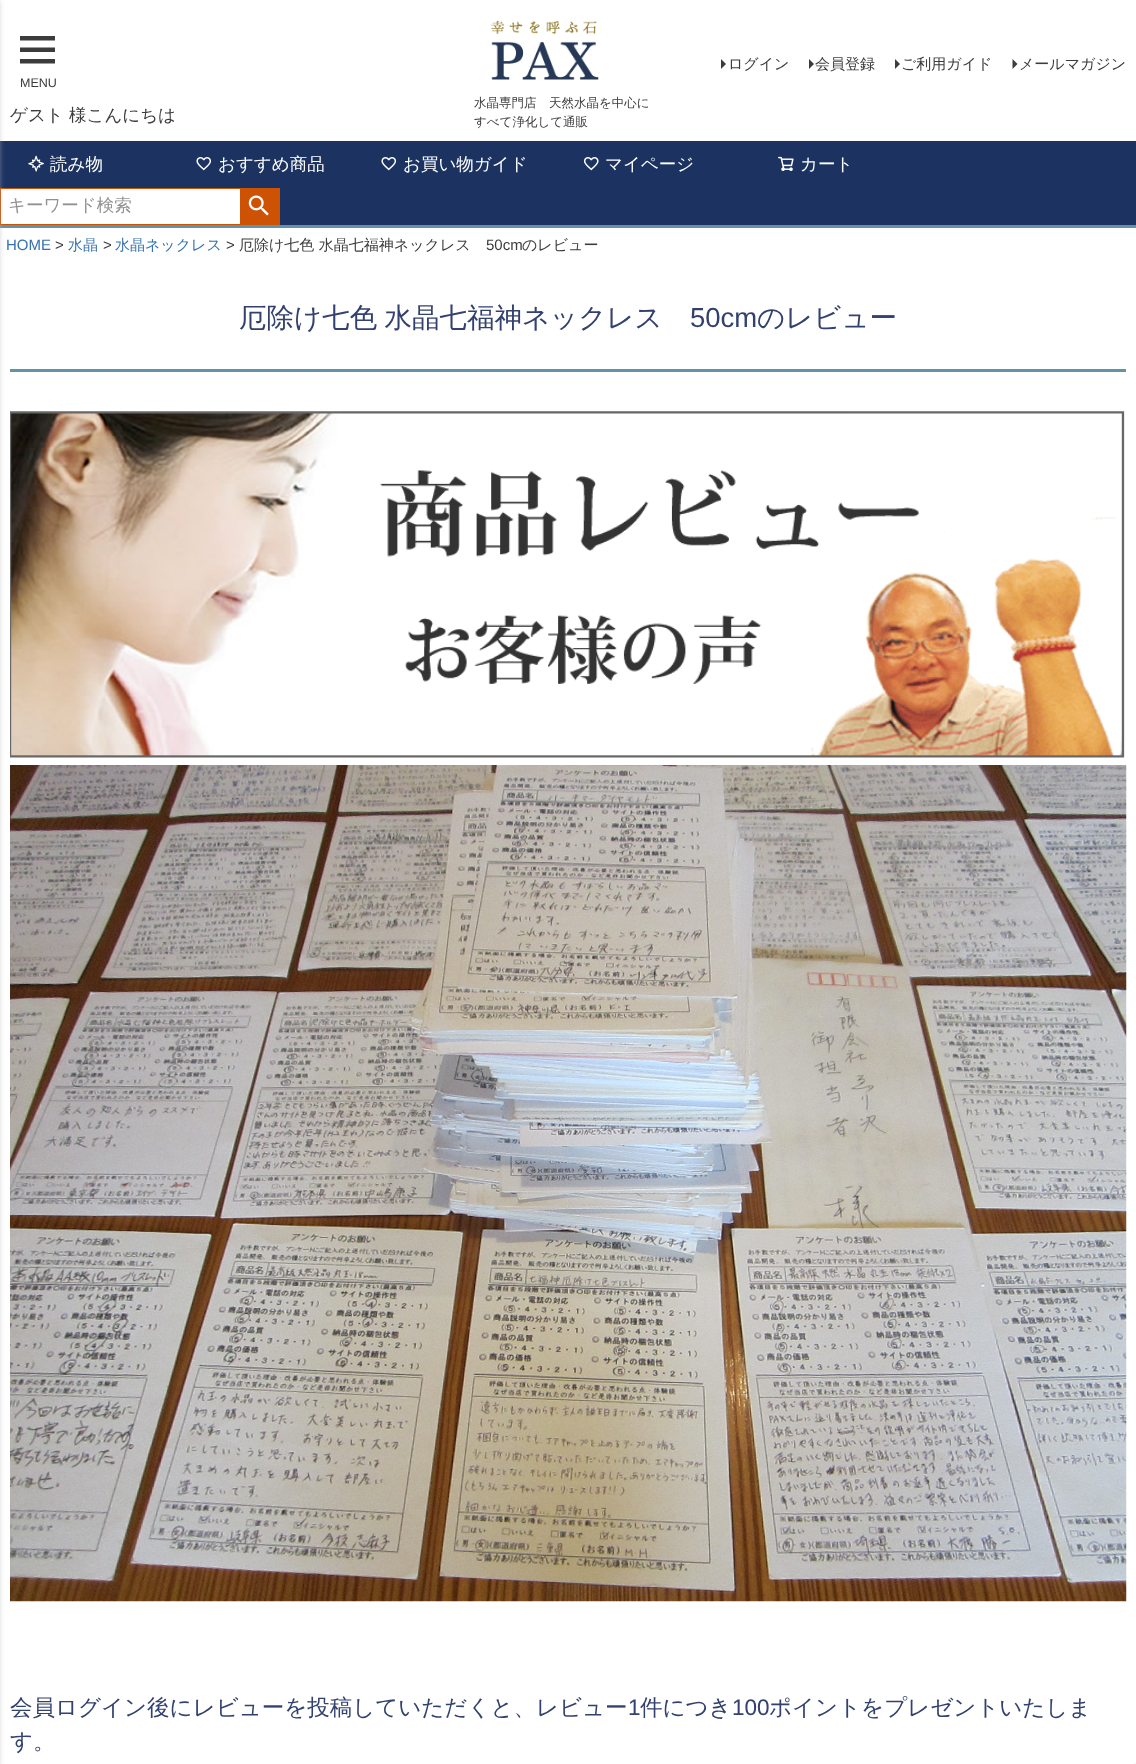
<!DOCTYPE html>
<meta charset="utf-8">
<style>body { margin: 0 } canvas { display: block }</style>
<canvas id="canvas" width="1136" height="1764"></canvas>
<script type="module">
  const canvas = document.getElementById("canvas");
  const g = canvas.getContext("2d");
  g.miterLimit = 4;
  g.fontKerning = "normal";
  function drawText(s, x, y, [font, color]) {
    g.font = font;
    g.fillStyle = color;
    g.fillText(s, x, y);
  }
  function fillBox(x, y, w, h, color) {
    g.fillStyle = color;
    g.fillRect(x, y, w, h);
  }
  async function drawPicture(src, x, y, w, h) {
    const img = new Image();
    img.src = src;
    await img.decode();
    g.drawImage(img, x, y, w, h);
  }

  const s1 = ["500 15px WenQuanYi Zen Hei", "#3C3C3C"];
  const s2 = ["12.5px Liberation Sans", "#3C3C3C"];
  const s3 = ["500 17.5px WenQuanYi Zen Hei", "#3C3C3C"];
  const s4 = ["500 12.5px WenQuanYi Zen Hei", "#3C3C3C"];
  const s5 = ["500 17.5px WenQuanYi Zen Hei", "#FFFFFF"];
  const s6 = ["500 17.5px WenQuanYi Zen Hei", "#919191"];
  const s7 = ["15px Liberation Sans", "#3572B0"];
  const s8 = ["15px Liberation Sans", "#3C3C3C"];
  const s9 = ["500 15px WenQuanYi Zen Hei", "#3572B0"];
  const s10 = ["500 27.5px WenQuanYi Zen Hei", "#33416F"];
  const s11 = ["27.5px Liberation Sans", "#33416F"];
  const s12 = ["500 22.5px WenQuanYi Zen Hei", "#33416F"];
  const s13 = ["22.5px Liberation Sans", "#33416F"];

  fillBox(0, 0, 1136, 1764, "#FFFFFF");
  g.fillStyle = "#3C3C3C";
  g.beginPath();
  g.moveTo(721, 69);
  g.lineTo(721, 59);
  g.lineTo(726, 64);
  g.closePath();
  g.fill();
  drawText("ログイン", 728, 69, s1);
  g.beginPath();
  g.moveTo(809, 69);
  g.lineTo(809, 59);
  g.lineTo(814, 64);
  g.closePath();
  g.fill();
  drawText("会員登録", 815, 69, s1);
  g.beginPath();
  g.moveTo(895, 69);
  g.lineTo(895, 59);
  g.lineTo(900, 64);
  g.closePath();
  g.fill();
  drawText("ご利用ガイド", 901, 69, s1);
  g.beginPath();
  g.moveTo(1012.5, 69);
  g.lineTo(1012.5, 59);
  g.lineTo(1017.5, 64);
  g.closePath();
  g.fill();
  drawText("メールマガジン", 1019, 69, s1);
  g.beginPath();
  g.moveTo(20, 36);
  g.lineTo(55, 36);
  g.lineTo(55, 40.5);
  g.lineTo(20, 40.5);
  g.closePath();
  g.moveTo(20, 47.5);
  g.lineTo(55, 47.5);
  g.lineTo(55, 52);
  g.lineTo(20, 52);
  g.closePath();
  g.moveTo(20, 59);
  g.lineTo(55, 59);
  g.lineTo(55, 63.5);
  g.lineTo(20, 63.5);
  g.closePath();
  g.fill();
  drawText("MENU", 20, 87, s2);
  drawText("ゲスト 様こんにちは", 10, 121, s3);
  await drawPicture("pic1.png", 490, 20, 109, 60);
  drawText("水晶専門店　天然水晶を中心に", 474, 107, s4);
  drawText("すべて浄化して通販", 474, 126, s4);
  fillBox(0, 141, 1136, 84, "#1C3362");
  fillBox(0, 225, 1136, 3, "#6492A8");
  await drawPicture("pic2.png", 28, 155, 16, 17);
  drawText("読み物", 50, 170, s5);
  await drawPicture("pic3.png", 196, 157, 15, 14);
  drawText("おすすめ商品", 218, 170, s5);
  await drawPicture("pic3.png", 381, 157, 15, 14);
  drawText("お買い物ガイド", 403, 170, s5);
  await drawPicture("pic4.png", 584, 157, 15, 14);
  drawText("マイページ", 605, 170, s5);
  await drawPicture("pic5.png", 778, 156, 16, 15);
  drawText("カート", 800, 170, s5);
  fillBox(0, 188, 280, 37, "#CE5204");
  fillBox(1, 189, 239, 35, "#FFFFFF");
  drawText("キーワード検索", 8, 211, s6);
  await drawPicture("pic6.png", 248, 195, 21, 21);
  drawText("HOME", 6, 250, s7);
  drawText(">", 55, 250, s8);
  drawText("水晶", 68, 250, s9);
  drawText(">", 103, 250, s8);
  drawText("水晶ネックレス", 115, 250, s9);
  drawText(">", 226, 250, s8);
  drawText("厄除け七色 水晶七福神ネックレス", 239, 250, s1);
  drawText("50cm", 486, 250, s8);
  drawText("のレビュー", 522, 250, s1);
  g.fillStyle = "#B2B2B2";
  g.filter = "blur(3px)";
  g.beginPath();
  g.rect(-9, 1, 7, 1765);
  g.fill();
  g.filter = "none";
  fillBox(10, 369, 1116, 3, "#6492A8");
  g.wordSpacing = "-1px";
  drawText("厄除け七色 水晶七福神ネックレス", 239, 327, s10);
  g.wordSpacing = "0px";
  drawText("50cm", 690, 327, s11);
  drawText("のレビュー", 757, 327, s10);
  await drawPicture("pic7.png", 10, 411, 1115, 347);
  await drawPicture("pic8.png", 10, 765, 1117, 837);
  drawText("会員ログイン後にレビューを投稿していただくと、レビュー", 10, 1715, s12);
  drawText("1", 628, 1715, s13);
  drawText("件につき", 640, 1715, s12);
  drawText("100", 732, 1715, s13);
  drawText("ポイントをプレゼントいたしま", 769, 1715, s12);
  drawText("す。", 10, 1749, s12);
  fillBox(1134, 1763, 2, 1, "#F5F5F5");
</script>
